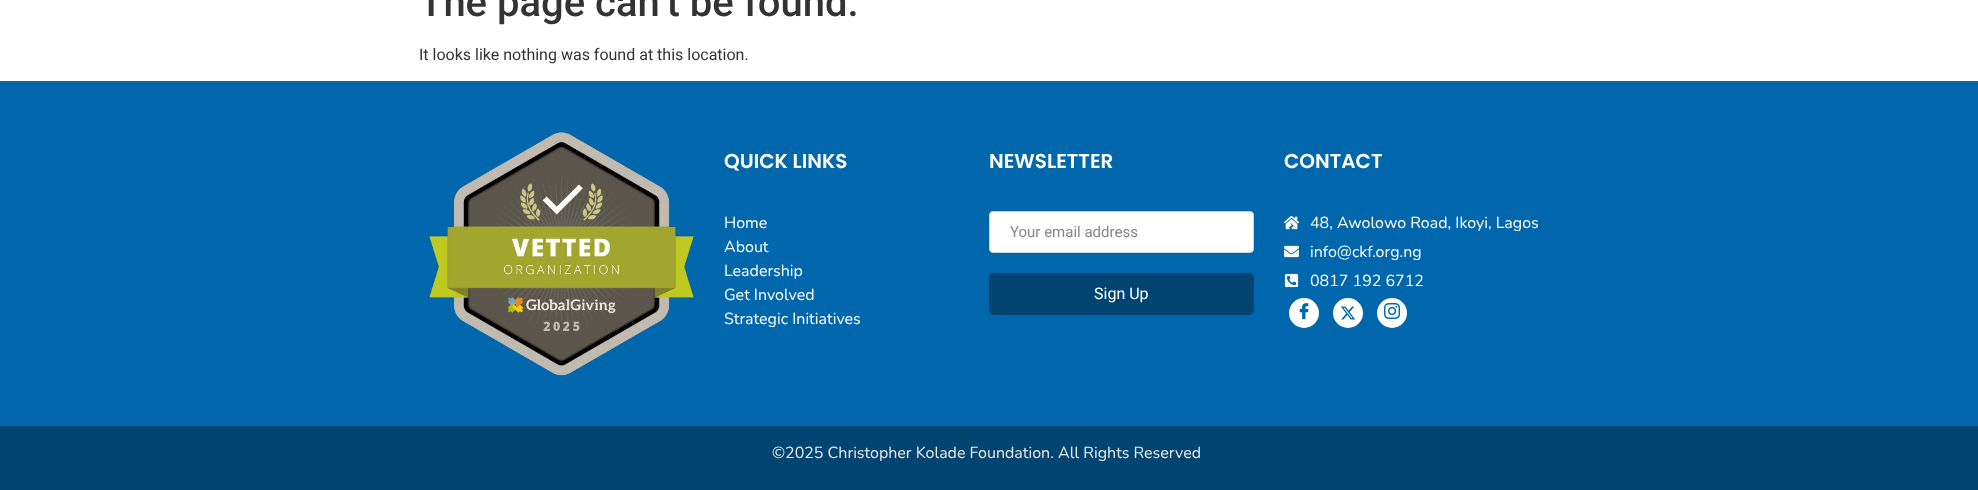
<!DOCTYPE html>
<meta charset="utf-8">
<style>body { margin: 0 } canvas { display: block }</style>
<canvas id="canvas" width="1978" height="490"></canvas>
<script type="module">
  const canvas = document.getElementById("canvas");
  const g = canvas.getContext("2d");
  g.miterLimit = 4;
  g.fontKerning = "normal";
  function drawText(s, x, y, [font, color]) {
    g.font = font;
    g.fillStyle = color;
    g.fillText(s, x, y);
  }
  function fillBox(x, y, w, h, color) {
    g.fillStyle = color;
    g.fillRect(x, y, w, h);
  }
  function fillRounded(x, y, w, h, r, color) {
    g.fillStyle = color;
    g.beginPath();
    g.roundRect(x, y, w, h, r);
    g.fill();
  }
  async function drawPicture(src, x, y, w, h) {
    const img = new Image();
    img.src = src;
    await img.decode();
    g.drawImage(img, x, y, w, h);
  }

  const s1 = ["500 40px Roboto", "#333333"];
  const s2 = ["16px Roboto", "#333333"];
  const s3 = ["600 20px Poppins", "#FFFFFF"];
  const s4 = ["16px Nunito", "#FFFFFF"];
  const s5 = ["15px Roboto", "#8A8484"];
  const s6 = ["16px Roboto", "#FFFFFF"];
  const s7 = ["16px Nunito", "#ECE9E9"];

  fillBox(0, 0, 1978, 490, "#FFFFFF");
  drawText("The page can’t be found.", 419, 16, s1);
  drawText("It looks like nothing was found at this location.", 419, 60, s2);
  fillBox(0, 81, 1978, 345, "#0067AC");
  await drawPicture("pic1.png", 429, 131, 265, 245);
  drawText("QUICK LINKS", 724, 168, s3);
  drawText("Home", 724, 228, s4);
  drawText("About", 724, 252, s4);
  drawText("Leadership", 724, 276, s4);
  drawText("Get Involved", 724, 300, s4);
  drawText("Strategic Initiatives", 724, 324, s4);
  drawText("NEWSLETTER", 989, 168, s3);
  g.beginPath();
  g.roundRect(989.5, 211.5, 264, 41, 3.5);
  g.fill();
  g.strokeStyle = "#CED4DA";
  g.stroke();
  drawText("Your email address", 1010, 237, s5);
  fillRounded(989, 273, 265, 42, 5, "#004471");
  drawText("Sign Up", 1094, 299, s6);
  drawText("CONTACT", 1284, 168, s3);
  await drawPicture("pic2.png", 1284, 215, 15, 15);
  drawText("48, Awolowo Road, Ikoyi, Lagos", 1310, 228, s4);
  await drawPicture("pic3.png", 1284, 245, 15, 13);
  drawText("info@ckf.org.ng", 1310, 257, s4);
  await drawPicture("pic4.png", 1284, 273, 15, 15);
  drawText("0817 192 6712", 1310, 286, s4);
  g.beginPath();
  g.arc(1304, 313, 15, 0, Math.PI * 2);
  g.fill();
  await drawPicture("pic5.png", 1299, 303, 10, 17);
  g.beginPath();
  g.arc(1348, 313, 15, 0, Math.PI * 2);
  g.fill();
  await drawPicture("pic6.png", 1341, 306, 15, 14);
  g.beginPath();
  g.arc(1392, 313, 15, 0, Math.PI * 2);
  g.fill();
  await drawPicture("pic7.png", 1384, 303, 17, 16);
  fillBox(0, 426, 1978, 64, "#004471");
  drawText("©2025 Christopher Kolade Foundation. All Rights Reserved", 772, 458, s7);
</script>
